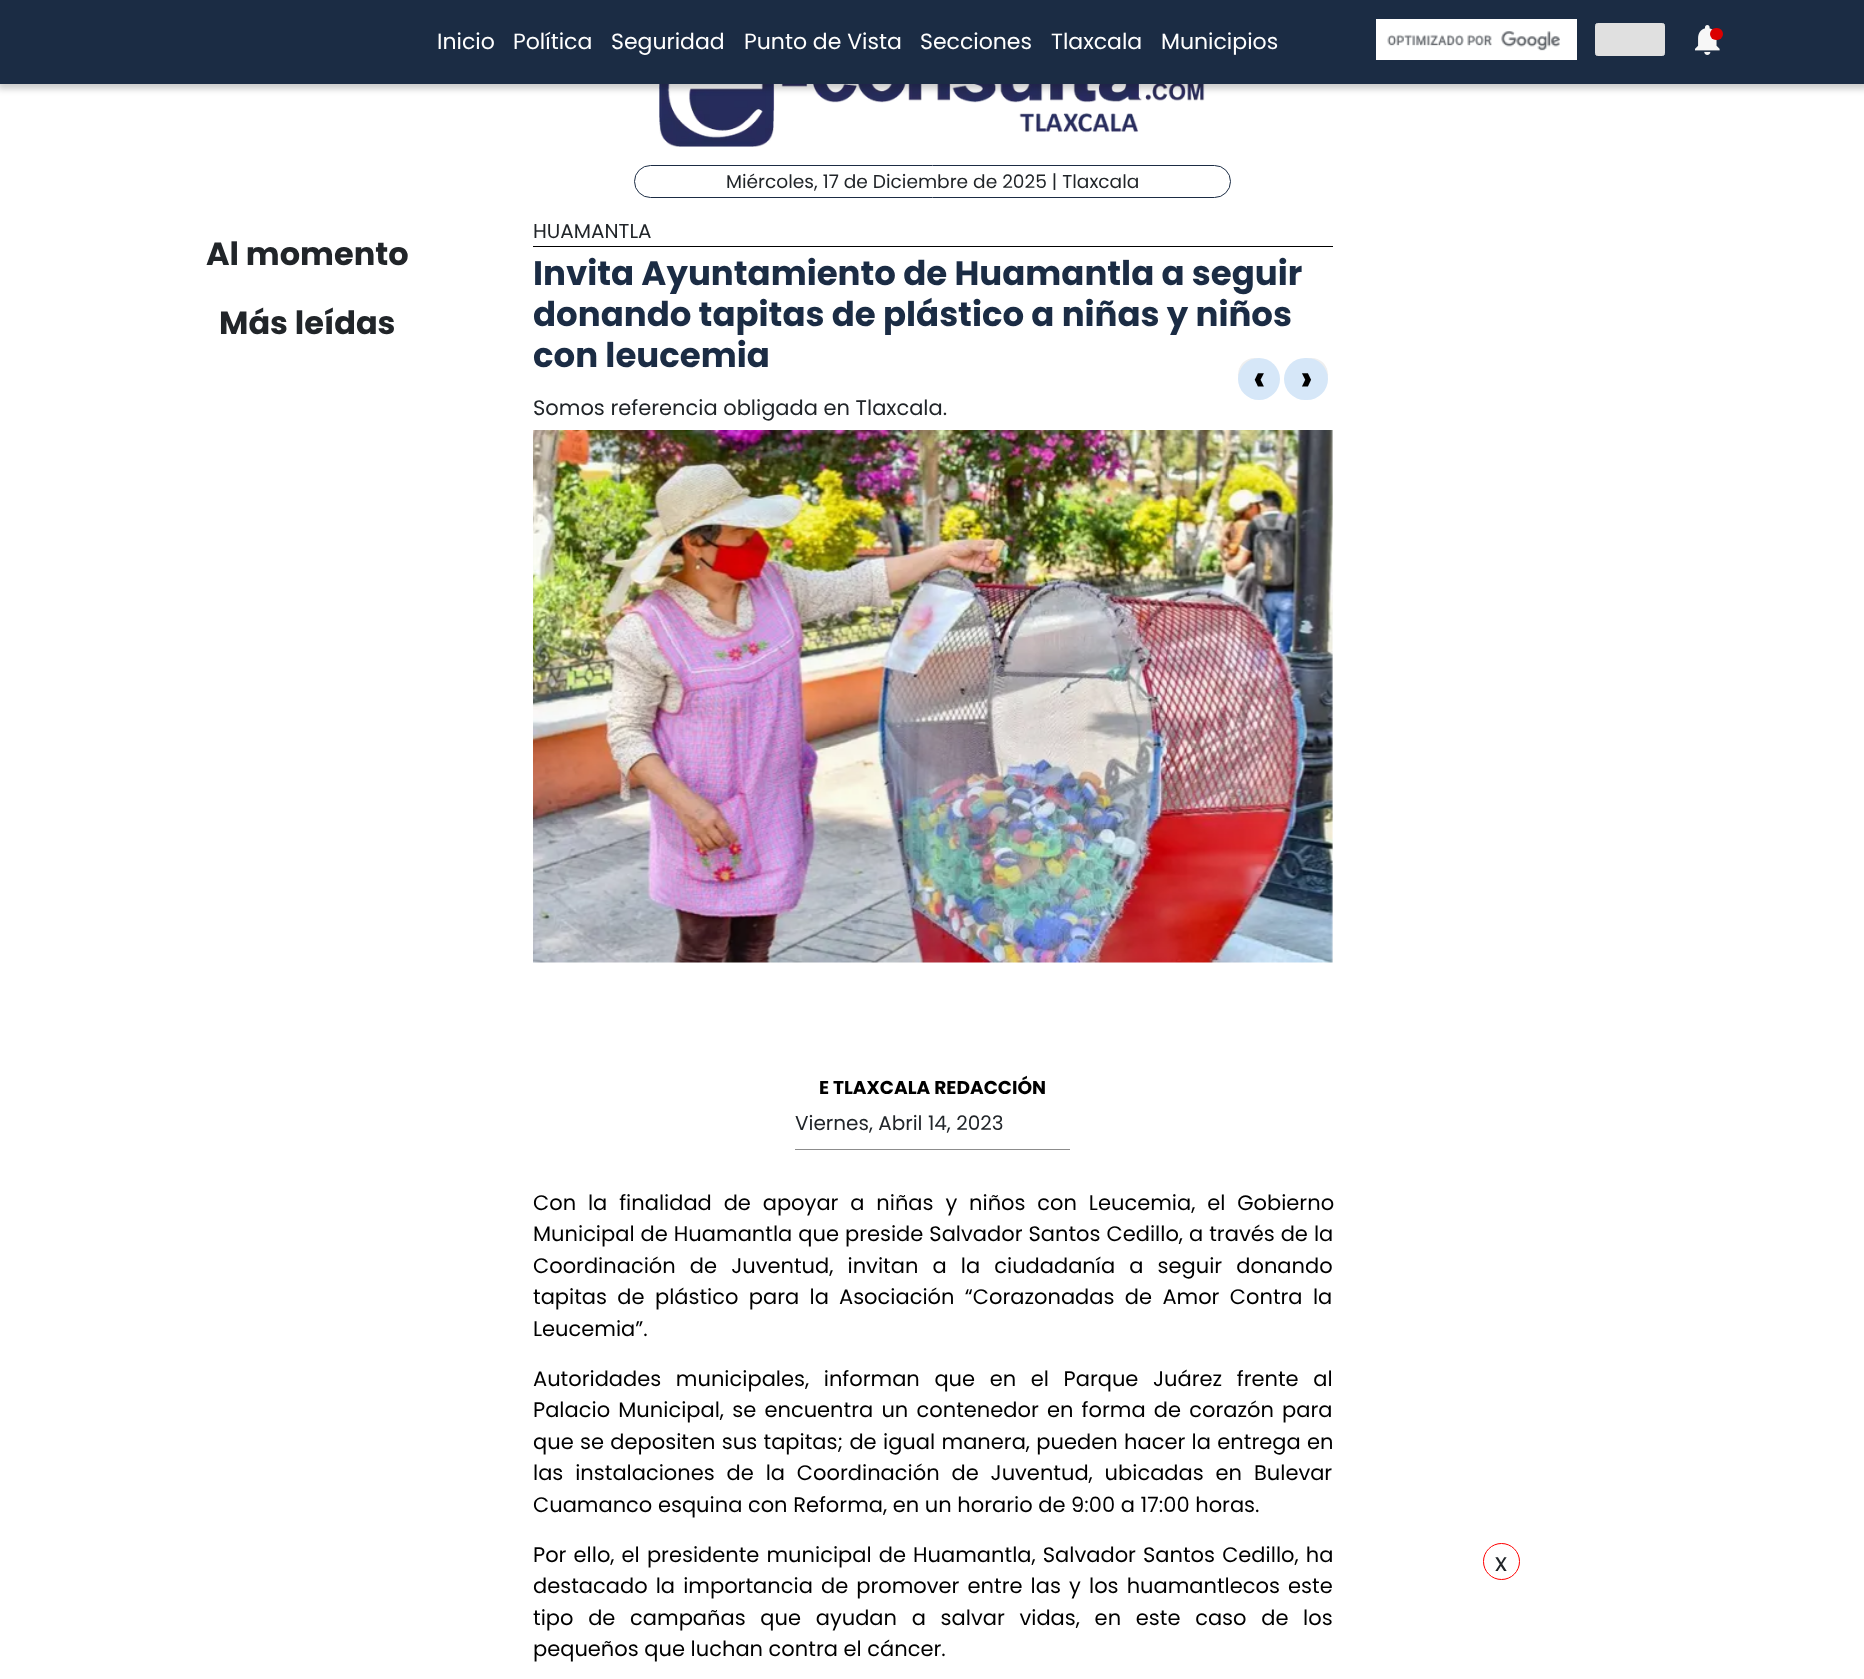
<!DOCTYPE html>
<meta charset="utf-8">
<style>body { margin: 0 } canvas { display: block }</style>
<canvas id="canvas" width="1864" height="1679"></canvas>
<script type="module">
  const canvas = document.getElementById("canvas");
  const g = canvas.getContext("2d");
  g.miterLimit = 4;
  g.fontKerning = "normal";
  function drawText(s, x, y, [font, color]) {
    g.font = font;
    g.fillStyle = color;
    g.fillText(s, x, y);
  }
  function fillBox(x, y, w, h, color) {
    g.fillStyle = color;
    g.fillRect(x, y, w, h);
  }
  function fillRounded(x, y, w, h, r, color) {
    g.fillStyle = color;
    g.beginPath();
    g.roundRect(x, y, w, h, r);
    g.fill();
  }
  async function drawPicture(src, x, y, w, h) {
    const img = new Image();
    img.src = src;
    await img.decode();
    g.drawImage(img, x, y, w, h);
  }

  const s1 = ["22px Poppins", "#FFFFFF"];
  const s2 = ["18.6px Poppins", "#212529"];
  const s3 = ["bold 32px Poppins", "#212529"];
  const s4 = ["20px Poppins", "#212529"];
  const s5 = ["bold 34px Poppins", "#1B2C44"];
  const s6 = ["bold 38px Poppins", "#000000"];
  const s7 = ["21px Poppins", "#212529"];
  const s8 = ["bold 18.6px Poppins", "#000000"];
  const s9 = ["21px Poppins", "#000000"];
  const s10 = ["25px Poppins", "#212529"];

  fillBox(0, 0, 1864, 1679, "#FFFFFF");
  await drawPicture("pic3.png", 659, 84, 546, 63);
  g.fillStyle = "rgba(0, 0, 0, 0.2)";
  g.filter = "blur(3px)";
  g.beginPath();
  g.rect(-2, 0, 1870, 89);
  g.fill();
  g.filter = "none";
  fillBox(0, 0, 1864, 84, "#1B2C44");
  drawText("Inicio", 437, 49, s1);
  drawText("Política", 513, 49, s1);
  drawText("Seguridad", 611, 49, s1);
  drawText("Punto de Vista", 744, 49, s1);
  drawText("Secciones", 920, 49, s1);
  drawText("Tlaxcala", 1051, 49, s1);
  drawText("Municipios", 1161, 49, s1);
  fillBox(1376, 19, 201, 41, "#FFFFFF");
  await drawPicture("pic1.png", 1387, 31, 173, 20);
  g.fillStyle = "#E0E0E0";
  g.beginPath();
  g.roundRect(1595.5, 23.5, 69, 32, 2);
  g.fill();
  g.strokeStyle = "#E0E0E0";
  g.stroke();
  await drawPicture("pic2.png", 1695, 25, 25, 30);
  fillRounded(1710, 28, 13, 12, 6, "#DB0000");
  g.beginPath();
  g.roundRect(634.5, 165.5, 596, 32, 16);
  g.strokeStyle = "#1B2C44";
  g.stroke();
  drawText("Miércoles, 17 de Diciembre de 2025 | Tlaxcala", 726, 188, s2);
  drawText("Al momento", 206, 265, s3);
  drawText("Más leídas", 219, 334, s3);
  fillBox(533, 246, 800, 1, "#000000");
  drawText("HUAMANTLA", 533, 238, s4);
  drawText("Invita Ayuntamiento de Huamantla a seguir", 533, 285, s5);
  drawText("donando tapitas de plástico a niñas y niños", 533, 326, s5);
  drawText("con leucemia", 533, 367, s5);
  g.fillStyle = "#EFEFEF";
  g.beginPath();
  g.arc(1254.5, 374.5, 16.5, 0, Math.PI * 2);
  g.fill();
  g.fillStyle = "#D6E7F8";
  g.beginPath();
  g.arc(1259, 379, 21, 0, Math.PI * 2);
  g.fill();
  drawText("‹", 1253, 391, s6);
  fillRounded(1294, 358, 34, 33, 16.5, "#EFEFEF");
  fillRounded(1284, 358, 44, 42, 21, "#D6E7F8");
  drawText("›", 1300, 391, s6);
  await drawPicture("pic4.png", 533, 430, 800, 533);
  drawText("Somos referencia obligada en Tlaxcala.", 533, 415, s7);
  fillBox(795, 1149, 275, 1, "#8C8C8C");
  drawText("E TLAXCALA REDACCIÓN", 819, 1094, s8);
  drawText("Viernes, Abril 14, 2023", 795, 1130, s4);
  g.wordSpacing = "6.25px";
  drawText("Con la finalidad de apoyar a niñas y niños con Leucemia, el Gobierno", 533, 1210, s9);
  g.wordSpacing = "0.4px";
  drawText("Municipal de Huamantla que preside Salvador Santos Cedillo, a través de la", 533, 1241, s9);
  g.wordSpacing = "8.5px";
  drawText("Coordinación de Juventud, invitan a la ciudadanía a seguir donando", 533, 1273, s9);
  g.wordSpacing = "4.75px";
  drawText("tapitas de plástico para la", 533, 1304, s9);
  drawText("Asociación “Corazonadas de Amor Contra la", 839, 1304, s9);
  g.wordSpacing = "0px";
  drawText("Leucemia”.", 533, 1336, s9);
  g.wordSpacing = "9px";
  drawText("Autoridades municipales, informan que en el Parque Juárez frente al", 533, 1386, s9);
  g.wordSpacing = "2.6px";
  drawText("Palacio Municipal, se encuentra un contenedor en forma de corazón para", 533, 1417, s9);
  g.wordSpacing = "0.75px";
  drawText("que se depositen sus tapitas; de igual manera, pueden hacer la entrega en", 533, 1449, s9);
  g.wordSpacing = "6.25px";
  drawText("las instalaciones de la Coordinación de Juventud, ubicadas en Bulevar", 533, 1480, s9);
  g.wordSpacing = "0px";
  drawText("Cuamanco esquina con Reforma, en un horario de 9:00 a 17:00 horas.", 533, 1512, s9);
  g.wordSpacing = "1.5px";
  drawText("Por ello, el presidente municipal de Huamantla, Salvador Santos Cedillo, ha", 533, 1562, s9);
  g.wordSpacing = "2.5px";
  drawText("destacado la importancia de promover entre las y los huamantlecos este", 533, 1593, s9);
  g.wordSpacing = "9.1px";
  drawText("tipo de campañas que ayudan a salvar vidas, en este caso de los", 533, 1625, s9);
  g.wordSpacing = "0px";
  drawText("pequeños que luchan contra el cáncer.", 533, 1656, s9);
  g.beginPath();
  g.arc(1501.5, 1561.5, 18, 0, Math.PI * 2);
  g.strokeStyle = "#FF0000";
  g.stroke();
  drawText("x", 1495, 1571, s10);
</script>
